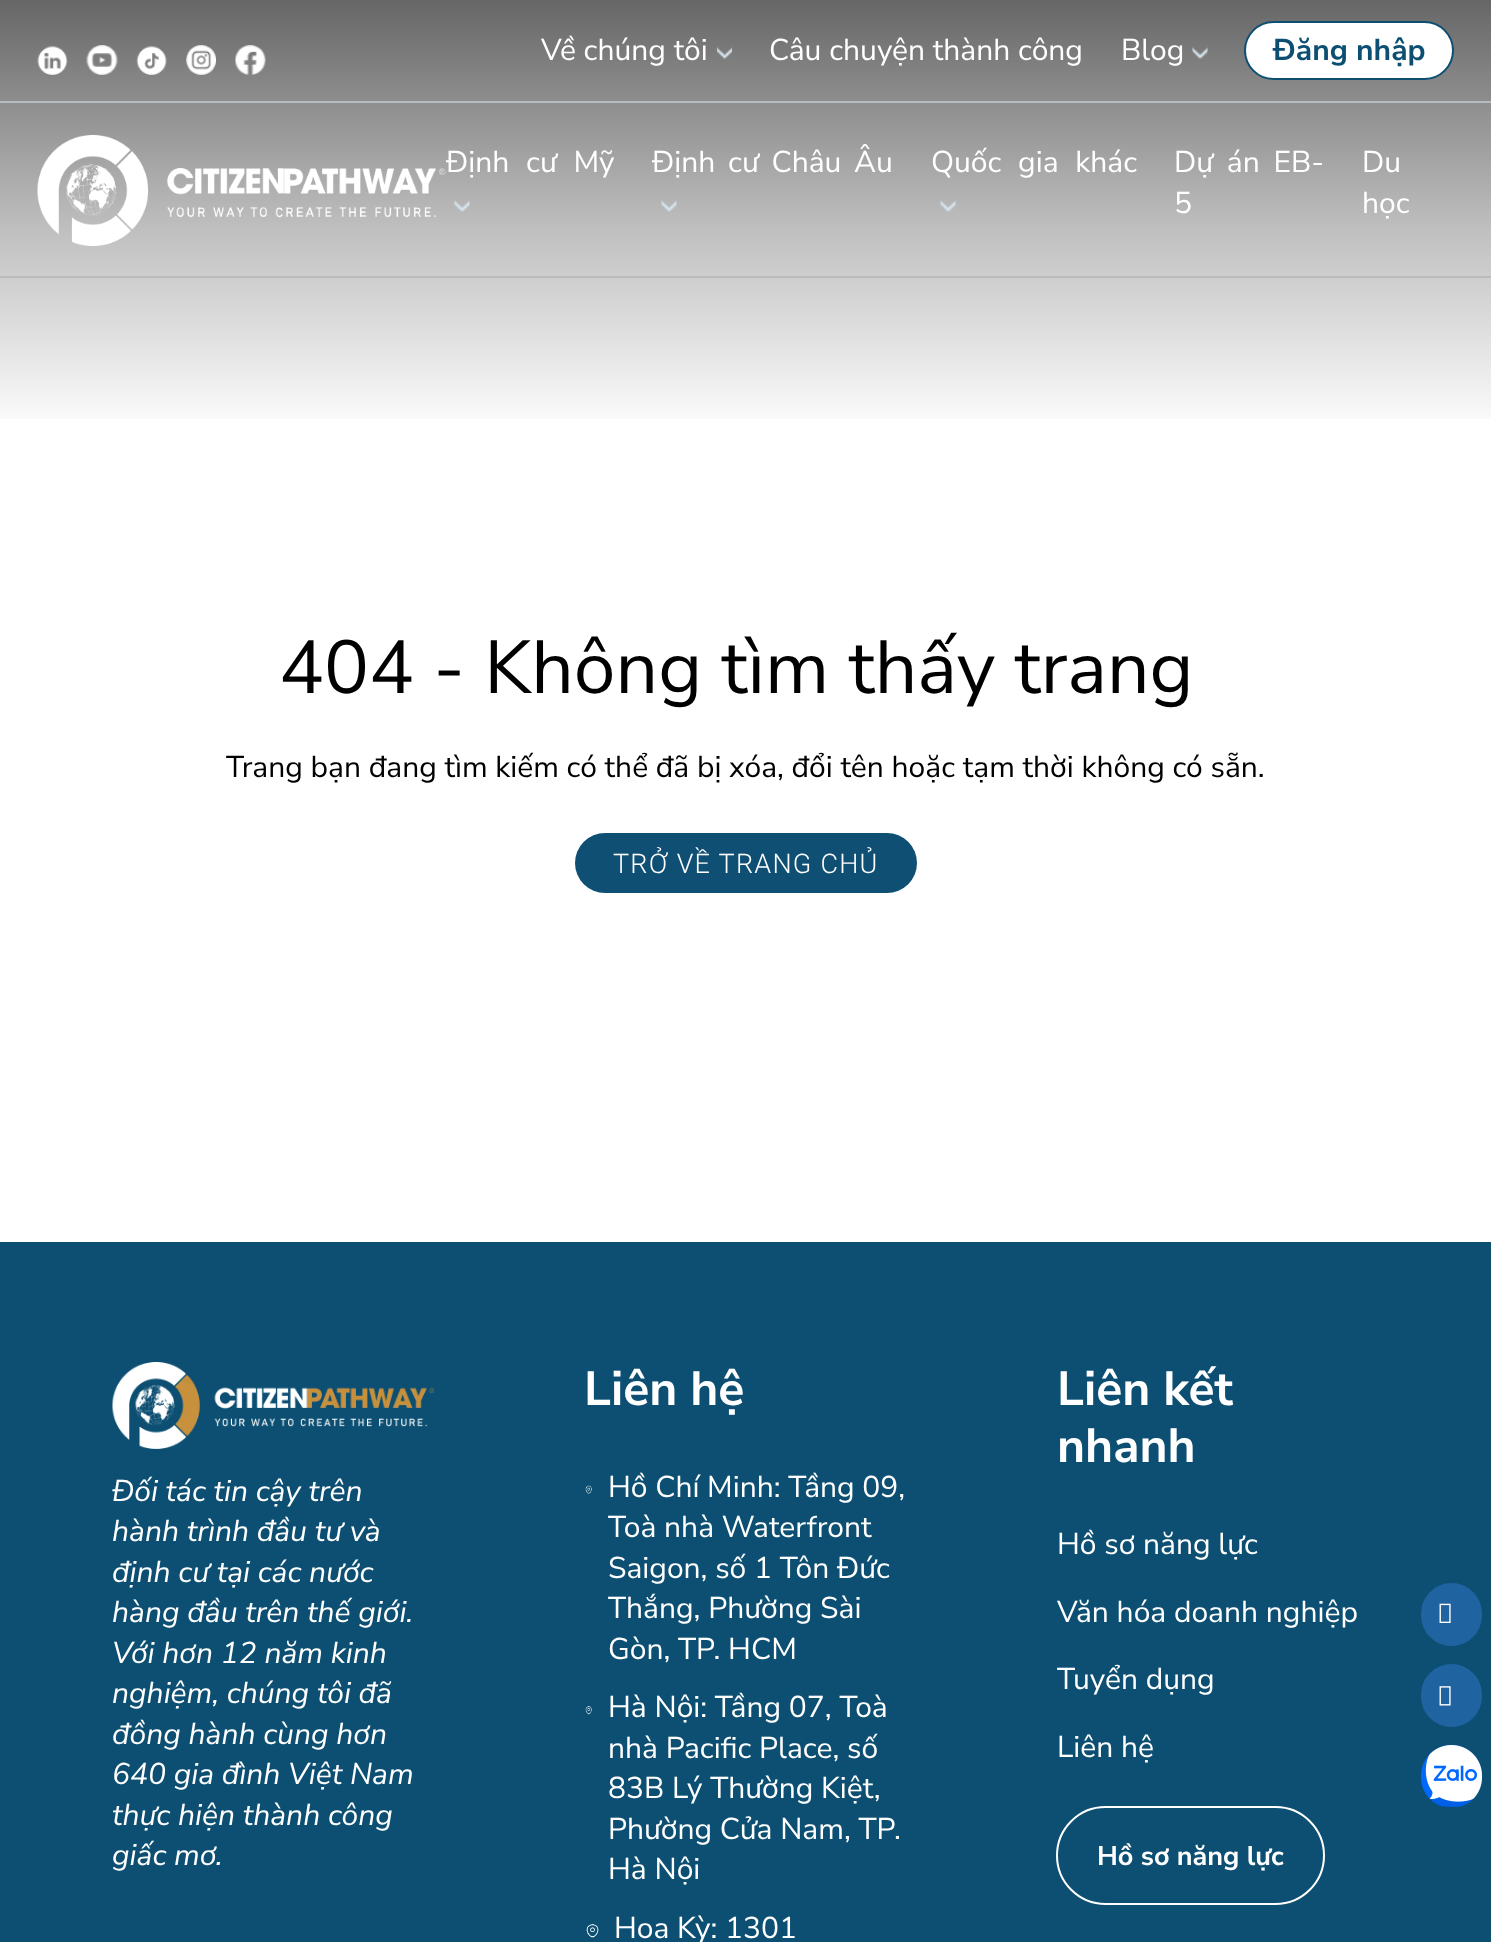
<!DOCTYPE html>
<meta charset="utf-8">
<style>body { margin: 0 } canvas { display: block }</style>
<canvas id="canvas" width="1491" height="1942"></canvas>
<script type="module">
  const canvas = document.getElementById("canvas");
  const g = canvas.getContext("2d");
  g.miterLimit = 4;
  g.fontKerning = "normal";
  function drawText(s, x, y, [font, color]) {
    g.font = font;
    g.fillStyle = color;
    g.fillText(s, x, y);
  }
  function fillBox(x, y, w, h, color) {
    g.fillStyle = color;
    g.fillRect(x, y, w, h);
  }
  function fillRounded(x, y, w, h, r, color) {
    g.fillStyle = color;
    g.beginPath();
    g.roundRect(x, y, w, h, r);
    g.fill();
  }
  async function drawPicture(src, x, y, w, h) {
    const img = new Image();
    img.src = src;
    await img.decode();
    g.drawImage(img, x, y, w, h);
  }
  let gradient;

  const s1 = ["30px Nunito Sans", "#FFFFFF"];
  const s2 = ["bold 30px Nunito Sans", "#0C4F72"];
  const s3 = ["75px Nunito Sans", "#000000"];
  const s4 = ["30px Nunito Sans", "#000000"];
  const s5 = ["300 27px Roboto", "#FFFFFF"];
  const s6 = ["italic 30px Nunito Sans", "#FFFFFF"];
  const s7 = ["bold 48px Nunito Sans", "#FFFFFF"];
  const s8 = ["bold 27px Nunito Sans", "#FFFFFF"];

  fillBox(0, 0, 1491, 1942, "#FFFFFF");
  fillBox(0, 276, 1491, 2, "#E7E7E7");
  gradient = g.createLinearGradient(746, 0, 746, 450);
  gradient.addColorStop(0, "rgba(0, 0, 0, 0.6)");
  gradient.addColorStop(0.51, "rgba(0, 0, 0, 0.25)");
  gradient.addColorStop(0.97, "rgba(0, 0, 0, 0)");
  g.fillStyle = gradient;
  g.fillRect(0, 0, 1491, 419);
  fillBox(0, 101, 1491, 2, "#B3BCC0");
  await drawPicture("pic1.png", 37, 46, 31, 29);
  await drawPicture("pic2.png", 86, 45, 32, 30);
  await drawPicture("pic3.png", 136, 46, 31, 29);
  await drawPicture("pic4.png", 186, 45, 30, 30);
  await drawPicture("pic5.png", 235, 45, 31, 30);
  drawText("Về chúng tôi", 541, 60, s1);
  await drawPicture("pic6.png", 717, 46, 15, 13);
  drawText("Câu chuyện thành công", 769, 60, s1);
  drawText("Blog", 1121, 60, s1);
  await drawPicture("pic7.png", 1192, 46, 16, 13);
  g.beginPath();
  g.roundRect(1245, 22, 208, 57, 28.5);
  g.fill();
  g.strokeStyle = "#0C4F72";
  g.lineWidth = 2;
  g.stroke();
  drawText("Đăng nhập", 1273, 60, s2);
  g.wordSpacing = "9px";
  drawText("Định cư Mỹ", 446, 172, s1);
  await drawPicture("pic8.png", 37, 135, 409, 111);
  await drawPicture("pic9.png", 454, 200, 16, 12);
  g.wordSpacing = "5px";
  drawText("Định cư Châu Âu", 652, 172, s1);
  await drawPicture("pic10.png", 661, 200, 16, 12);
  g.wordSpacing = "9px";
  drawText("Quốc gia khác", 931, 172, s1);
  await drawPicture("pic11.png", 940, 200, 16, 12);
  g.wordSpacing = "6px";
  drawText("Dự án EB-", 1174, 172, s1);
  g.wordSpacing = "0px";
  drawText("5", 1174, 213, s1);
  drawText("Du", 1362, 172, s1);
  drawText("học", 1362, 213, s1);
  drawText("404 - Không tìm thấy trang", 279, 693, s3);
  drawText("Trang bạn đang tìm kiếm có thể đã bị xóa, đổi tên hoặc tạm thời không có sẵn.", 226, 777, s4);
  fillRounded(575, 833, 342, 60, 30, "#0F4F73");
  g.letterSpacing = "1.25px";
  drawText("TRỞ VỀ TRANG CHỦ", 613, 873, s5);
  fillBox(0, 1242, 1491, 700, "#0C4F72");
  await drawPicture("pic12.png", 112, 1362, 323, 87);
  g.letterSpacing = "0px";
  drawText("Đối tác tin cậy trên", 112, 1501, s6);
  drawText("hành trình đầu tư và", 112, 1541, s6);
  drawText("định cư tại các nước", 112, 1582, s6);
  drawText("hàng đầu trên thế giới.", 112, 1622, s6);
  drawText("Với hơn 12 năm kinh", 112, 1663, s6);
  drawText("nghiệm, chúng tôi đã", 112, 1703, s6);
  drawText("đồng hành cùng hơn", 112, 1744, s6);
  drawText("640 gia đình Việt Nam", 112, 1784, s6);
  drawText("thực hiện thành công", 112, 1825, s6);
  drawText("giấc mơ.", 112, 1865, s6);
  drawText("Liên hệ", 584, 1405, s7);
  await drawPicture("pic13.png", 585, 1485, 7, 9);
  drawText("Hồ Chí Minh: Tầng 09,", 608, 1497, s1);
  drawText("Toà nhà Waterfront", 608, 1537, s1);
  drawText("Saigon, số 1 Tôn Đức", 608, 1578, s1);
  drawText("Thắng, Phường Sài", 608, 1618, s1);
  drawText("Gòn, TP. HCM", 608, 1659, s1);
  await drawPicture("pic14.png", 585, 1706, 7, 9);
  drawText("Hà Nội: Tầng 07, Toà", 608, 1717, s1);
  drawText("nhà Pacific Place, số", 608, 1758, s1);
  drawText("83B Lý Thường Kiệt,", 608, 1798, s1);
  drawText("Phường Cửa Nam, TP.", 608, 1839, s1);
  drawText("Hà Nội", 608, 1879, s1);
  await drawPicture("pic15.png", 586, 1924, 13, 14);
  drawText("Hoa Kỳ: 1301", 614, 1938, s1);
  drawText("Liên kết", 1057, 1405, s7);
  drawText("nhanh", 1057, 1462, s7);
  drawText("Hồ sơ năng lực", 1057, 1554, s1);
  drawText("Văn hóa doanh nghiệp", 1057, 1622, s1);
  drawText("Tuyển dụng", 1057, 1689, s1);
  drawText("Liên hệ", 1057, 1757, s1);
  g.beginPath();
  g.roundRect(1057, 1807, 267, 97, 48.5);
  g.strokeStyle = "#FFFFFF";
  g.stroke();
  drawText("Hồ sơ năng lực", 1097, 1865, s8);
  fillRounded(1421, 1583, 61, 63, 30.5, "#2063A1");
  await drawPicture("pic16.png", 1439, 1603, 12, 20);
  fillRounded(1421, 1664, 61, 63, 30.5, "#2063A1");
  await drawPicture("pic17.png", 1439, 1686, 12, 20);
  await drawPicture("pic18.png", 1421, 1745, 61, 62);
</script>
